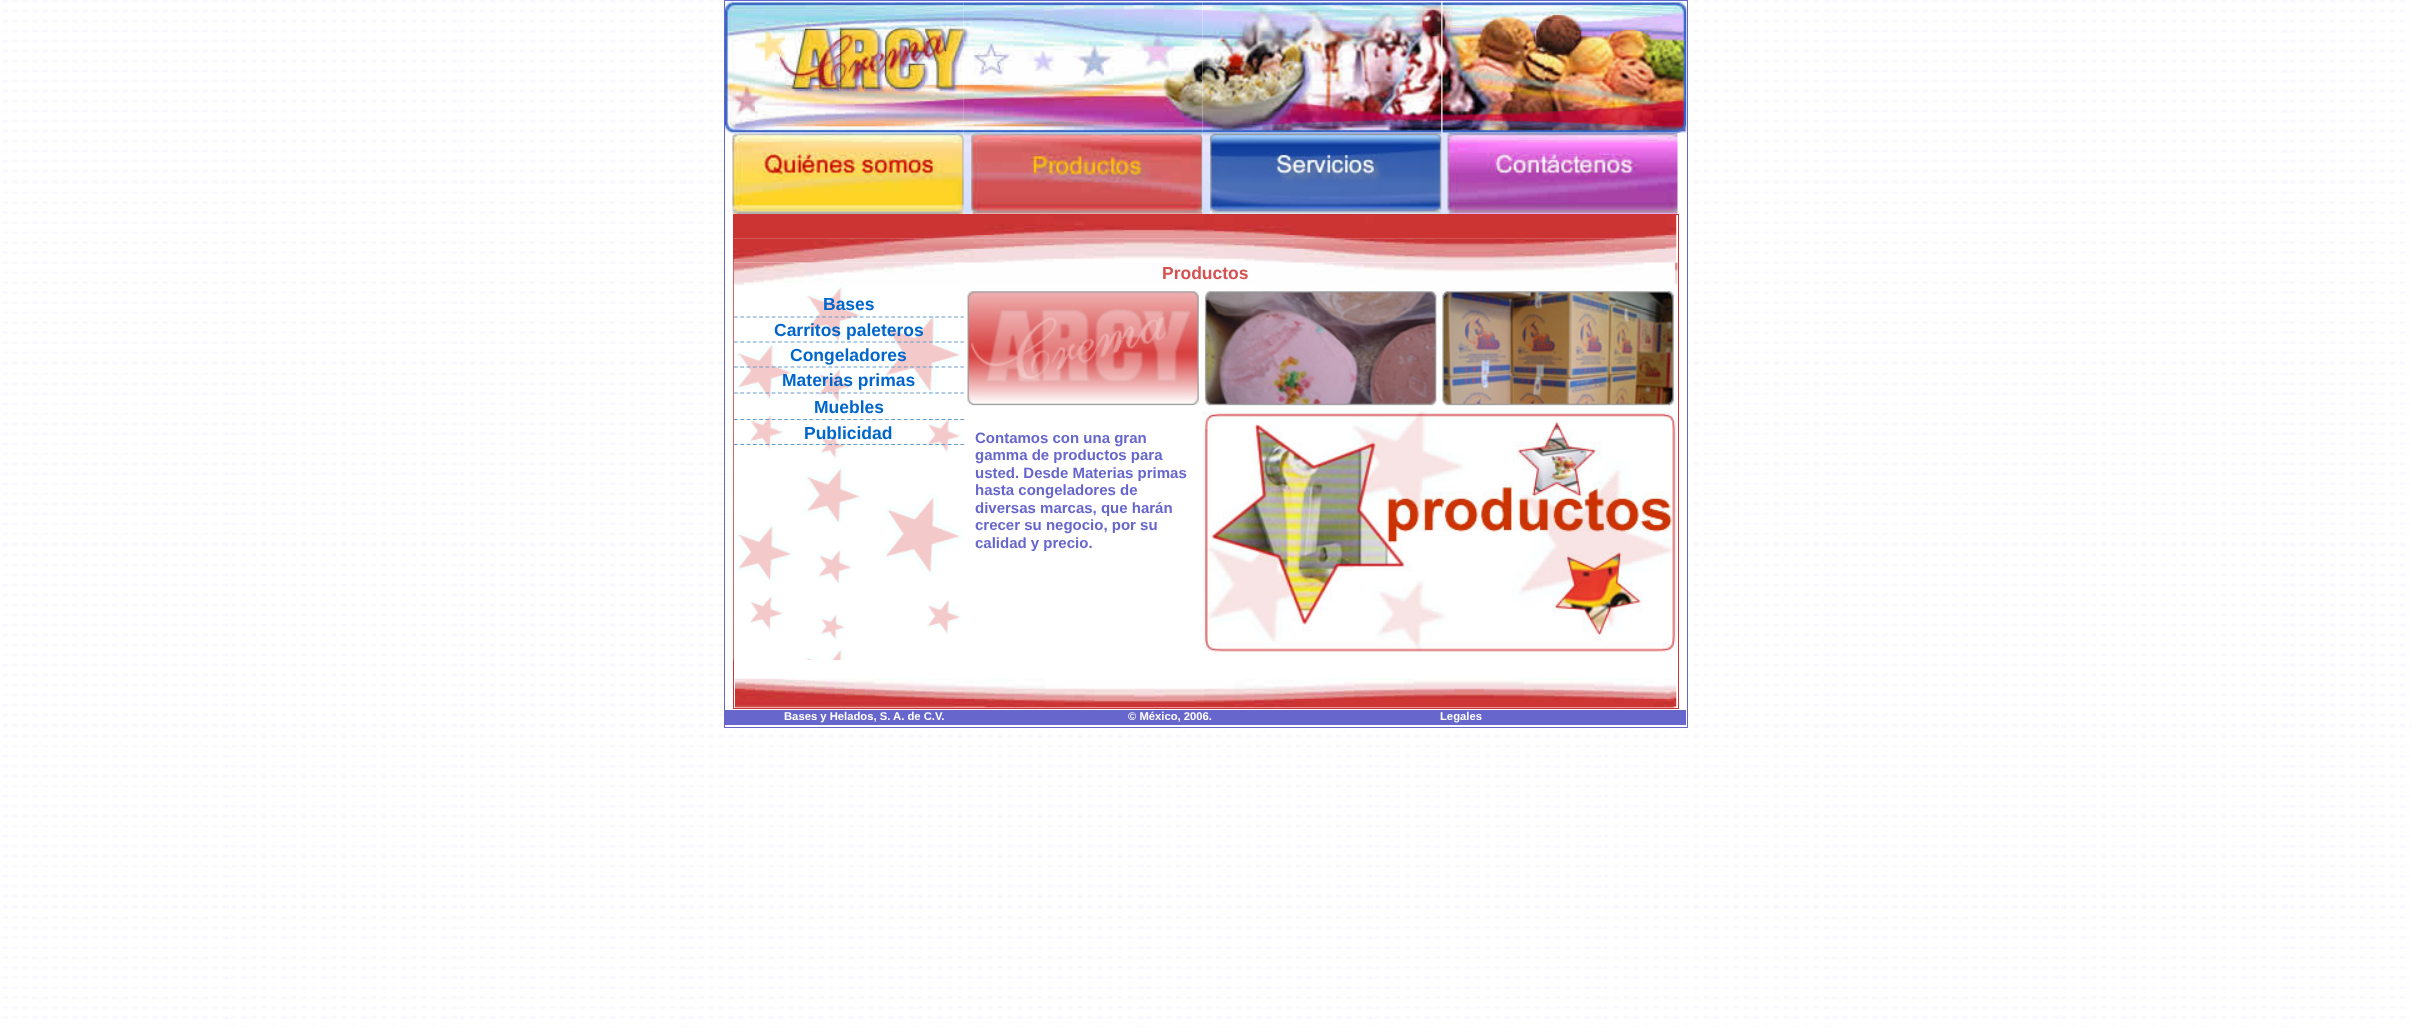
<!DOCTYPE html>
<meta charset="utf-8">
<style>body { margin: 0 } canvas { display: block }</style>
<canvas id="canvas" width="2411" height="1027"></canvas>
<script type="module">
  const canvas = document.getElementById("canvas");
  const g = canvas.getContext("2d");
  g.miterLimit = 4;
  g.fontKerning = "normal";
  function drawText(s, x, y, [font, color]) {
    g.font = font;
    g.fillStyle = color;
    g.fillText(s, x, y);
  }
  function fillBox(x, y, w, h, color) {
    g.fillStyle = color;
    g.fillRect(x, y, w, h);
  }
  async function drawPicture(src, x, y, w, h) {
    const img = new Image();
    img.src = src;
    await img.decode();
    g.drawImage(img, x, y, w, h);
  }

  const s1 = ["bold 17.5px Liberation Sans", "#D45252"];
  const s2 = ["bold 17.5px Liberation Sans", "#0066CC"];
  const s3 = ["bold 15px Liberation Sans", "#6766CC"];
  const s4 = ["bold 11.25px Liberation Sans", "#FFFFFF"];

  fillBox(0, 0, 2411, 1027, "#FFFFFF");
  await drawPicture("pic1.png", 3, 0, 2408, 1027);
  fillBox(729, 1, 958, 726, "#FFFFFF");
  g.strokeStyle = "#6766CC";
  g.strokeRect(724.5, 0.5, 963, 727);
  await drawPicture("pic2.png", 725, 1, 239, 132);
  await drawPicture("pic3.png", 963, 1, 240, 132);
  await drawPicture("pic4.png", 1202, 1, 240, 132);
  await drawPicture("pic5.png", 1442, 1, 245, 132);
  await drawPicture("pic6.png", 732, 132, 232, 82);
  await drawPicture("pic7.png", 963, 132, 9, 82);
  await drawPicture("pic8.png", 971, 132, 232, 82);
  await drawPicture("pic9.png", 1202, 132, 8, 82);
  fillBox(1441, 133, 7, 81, "#DFE3FF");
  await drawPicture("pic10.png", 1210, 132, 232, 82);
  await drawPicture("pic11.png", 1447, 132, 231, 82);
  g.strokeStyle = "#CC3433";
  g.strokeRect(733.5, 214.5, 945, 494);
  await drawPicture("pic12.png", 734, 215, 943, 24);
  await drawPicture("pic14.png", 733, 262, 945, 25);
  await drawPicture("pic13.png", 733, 238, 944, 25);
  drawText("Productos", 1162, 279, s1);
  await drawPicture("pic15.png", 733, 286, 231, 374);
  drawText("Bases", 823, 310, s2);
  g.beginPath();
  g.moveTo(734, 317);
  g.lineTo(964, 317);
  g.strokeStyle = "#669ACC";
  g.lineWidth = 1.2;
  g.setLineDash([3.75, 2.54]);
  g.stroke();
  drawText("Carritos paleteros", 774, 336, s2);
  g.beginPath();
  g.moveTo(734, 342);
  g.lineTo(964, 342);
  g.stroke();
  drawText("Congeladores", 790, 361, s2);
  g.beginPath();
  g.moveTo(734, 367);
  g.lineTo(964, 367);
  g.stroke();
  drawText("Materias primas", 782, 386, s2);
  g.beginPath();
  g.moveTo(734, 393);
  g.lineTo(964, 393);
  g.stroke();
  drawText("Muebles", 814, 413, s2);
  g.beginPath();
  g.moveTo(734, 419.5);
  g.lineTo(964, 419.5);
  g.stroke();
  drawText("Publicidad", 804, 439, s2);
  g.beginPath();
  g.moveTo(734, 444.5);
  g.lineTo(964, 444.5);
  g.stroke();
  await drawPicture("pic16.png", 963, 286, 711, 120);
  drawText("Contamos con una gran", 975, 443, s3);
  drawText("gamma de productos para", 975, 460, s3);
  drawText("usted. Desde Materias primas", 975, 478, s3);
  drawText("hasta congeladores de", 975, 495, s3);
  drawText("diversas marcas, que harán", 975, 513, s3);
  drawText("crecer su negocio, por su", 975, 530, s3);
  drawText("calidad y precio.", 975, 548, s3);
  await drawPicture("pic17.png", 1202, 411, 476, 241);
  await drawPicture("pic18.png", 735, 678, 942, 30);
  fillBox(725, 710, 961, 15, "#6766CC");
  drawText("Bases y Helados, S. A. de C.V.", 784, 720, s4);
  drawText("© México, 2006.", 1128, 720, s4);
  drawText("Legales", 1440, 720, s4);
</script>
